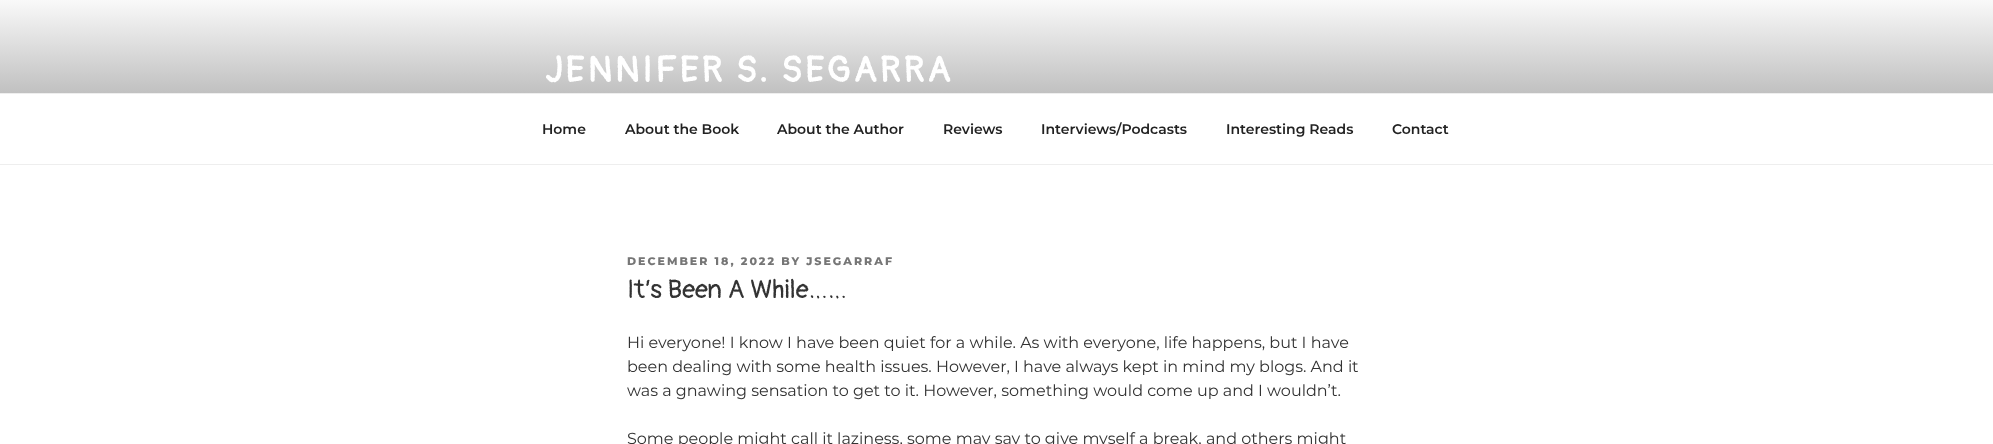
<!DOCTYPE html>
<meta charset="utf-8">
<style>body { margin: 0 } canvas { display: block }</style>
<canvas id="canvas" width="1993" height="444"></canvas>
<script type="module">
  const canvas = document.getElementById("canvas");
  const g = canvas.getContext("2d");
  g.miterLimit = 4;
  g.fontKerning = "normal";
  function drawText(s, x, y, [font, color]) {
    g.font = font;
    g.fillStyle = color;
    g.fillText(s, x, y);
  }
  function fillBox(x, y, w, h, color) {
    g.fillStyle = color;
    g.fillRect(x, y, w, h);
  }
  let gradient;

  const s1 = ["bold 36px Pangolin", "#FFFFFF"];
  const s2 = ["600 14px Montserrat", "#222222"];
  const s3 = ["800 11px Montserrat", "#767676"];
  const s4 = ["26px Pangolin", "#333333"];
  const s5 = ["16px Montserrat", "#333333"];

  fillBox(0, 0, 1993, 444, "#FFFFFF");
  gradient = g.createLinearGradient(997, 0, 997, 165);
  gradient.addColorStop(0, "#F9F9F9");
  gradient.addColorStop(0.75, "#AEAEAE");
  gradient.addColorStop(1, "#AEAEAE");
  g.fillStyle = gradient;
  g.fillRect(0, 0, 1993, 93);
  g.letterSpacing = "2.9px";
  drawText("JENNIFER S. SEGARRA", 545, 82, s1);
  fillBox(0, 93, 1993, 1, "#EEEEEE");
  fillBox(0, 164, 1993, 1, "#EEEEEE");
  g.letterSpacing = "0px";
  drawText("Home", 542, 134, s2);
  drawText("About the Book", 625, 134, s2);
  drawText("About the Author", 777, 134, s2);
  drawText("Reviews", 943, 134, s2);
  drawText("Interviews/Podcasts", 1041, 134, s2);
  drawText("Interesting Reads", 1226, 134, s2);
  drawText("Contact", 1392, 134, s2);
  g.letterSpacing = "2px";
  drawText("DECEMBER 18, 2022 BY JSEGARRAF", 627, 265, s3);
  g.letterSpacing = "0px";
  drawText("It’s Been A While……", 627, 298, s4);
  drawText("Hi everyone! I know I have been quiet for a while. As with everyone, life happens, but I have", 627, 348, s5);
  drawText("been dealing with some health issues. However, I have always kept in mind my blogs. And it", 627, 372, s5);
  drawText("was a gnawing sensation to get to it. However, something would come up and I wouldn’t.", 627, 396, s5);
  drawText("Some people might call it laziness, some may say to give myself a break, and others might", 627, 444, s5);
</script>
